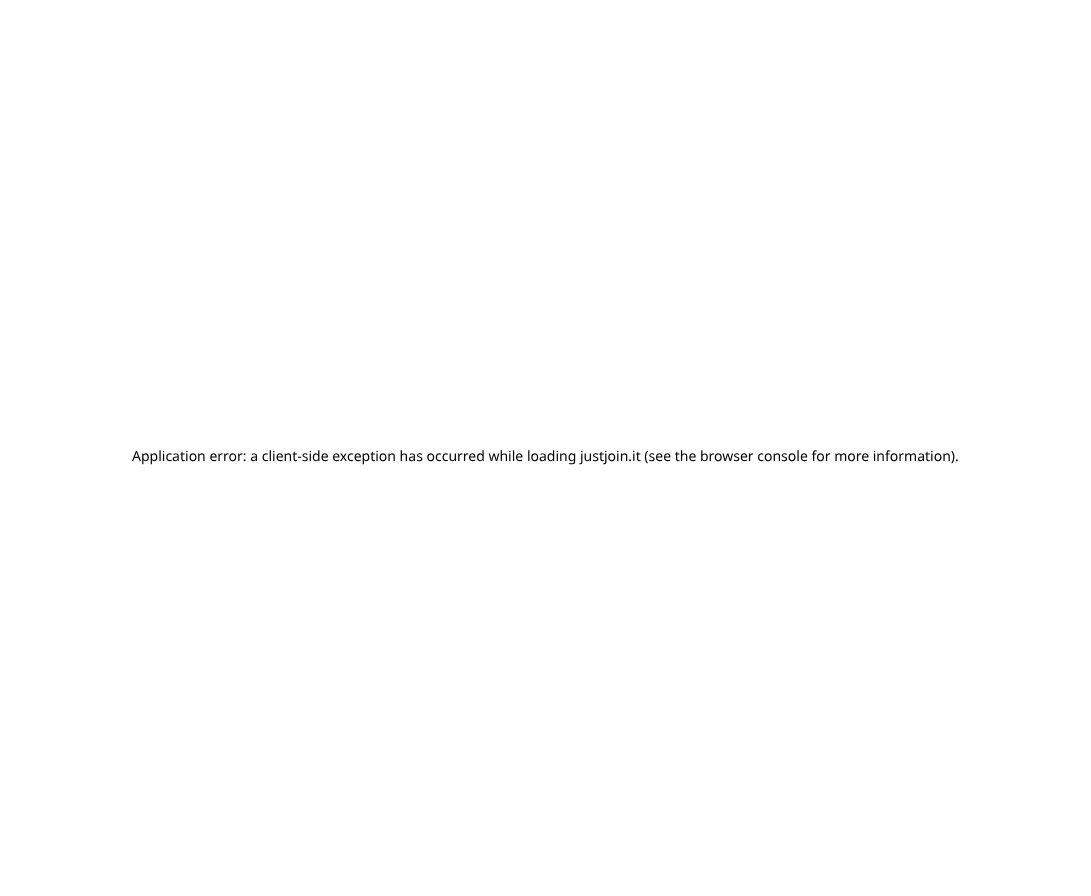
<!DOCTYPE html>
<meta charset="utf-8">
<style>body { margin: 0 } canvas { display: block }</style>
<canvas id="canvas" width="1091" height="896"></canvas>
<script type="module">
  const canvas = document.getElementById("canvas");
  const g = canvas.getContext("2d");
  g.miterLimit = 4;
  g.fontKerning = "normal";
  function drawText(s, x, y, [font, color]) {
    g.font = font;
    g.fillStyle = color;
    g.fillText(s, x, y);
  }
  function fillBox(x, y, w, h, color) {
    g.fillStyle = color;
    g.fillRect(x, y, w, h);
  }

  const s1 = ["14px Noto Sans", "#000000"];

  fillBox(0, 0, 1091, 896, "#FFFFFF");
  drawText("Application error: a client-side exception has occurred while loading justjoin.it (see the browser console for more information).", 132, 461, s1);
</script>
